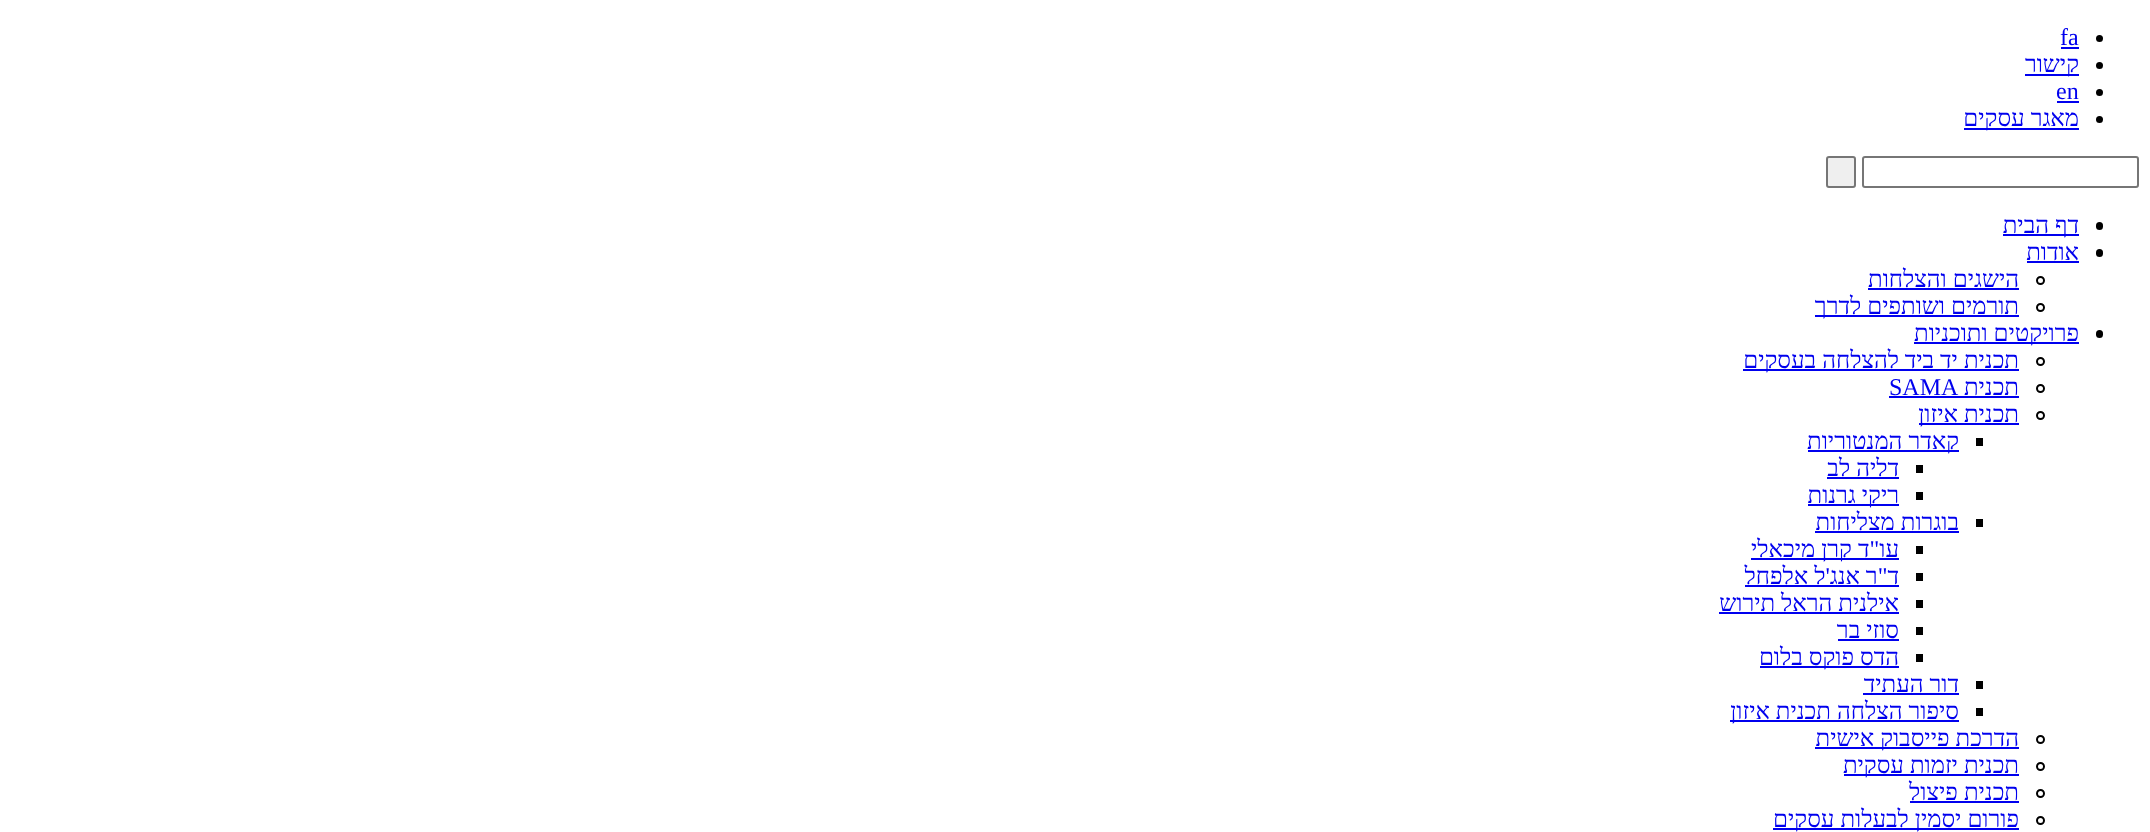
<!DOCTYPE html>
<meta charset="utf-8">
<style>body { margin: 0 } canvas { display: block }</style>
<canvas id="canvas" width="2150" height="832"></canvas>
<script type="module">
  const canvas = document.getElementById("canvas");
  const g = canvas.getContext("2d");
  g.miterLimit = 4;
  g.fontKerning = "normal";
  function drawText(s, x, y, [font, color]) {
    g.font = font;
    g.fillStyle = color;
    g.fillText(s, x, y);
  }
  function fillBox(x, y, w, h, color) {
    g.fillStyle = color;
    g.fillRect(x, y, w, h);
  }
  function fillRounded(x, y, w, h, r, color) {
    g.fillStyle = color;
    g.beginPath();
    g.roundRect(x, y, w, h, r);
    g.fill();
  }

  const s1 = ["24px Liberation Serif", "#0000EE"];

  fillBox(0, 0, 2150, 832, "#FFFFFF");
  g.fillStyle = "#000000";
  g.beginPath();
  g.arc(2099.5, 38.5, 3.5, 0, Math.PI * 2);
  g.fill();
  drawText("fa", 2060, 45, s1);
  fillBox(2061, 47, 18, 2, "#0000EE");
  g.fillStyle = "#000000";
  g.beginPath();
  g.arc(2099.5, 65.5, 3.5, 0, Math.PI * 2);
  g.fill();
  fillBox(2025, 74, 54, 2, "#0000EE");
  g.direction = "rtl";
  drawText("קישור", 2079, 72, s1);
  g.fillStyle = "#000000";
  g.beginPath();
  g.arc(2099.5, 92.5, 3.5, 0, Math.PI * 2);
  g.fill();
  g.direction = "ltr";
  drawText("en", 2056, 99, s1);
  fillBox(2057, 101, 22, 2, "#0000EE");
  g.fillStyle = "#000000";
  g.beginPath();
  g.arc(2099.5, 119.5, 3.5, 0, Math.PI * 2);
  g.fill();
  fillBox(1964, 128, 115, 2, "#0000EE");
  g.direction = "rtl";
  drawText("מאגר עסקים", 2079, 126, s1);
  g.beginPath();
  g.roundRect(1863, 157, 275, 30, 2);
  g.strokeStyle = "#767676";
  g.lineWidth = 2;
  g.stroke();
  g.fillStyle = "#EFEFEF";
  g.beginPath();
  g.roundRect(1827, 157, 28, 30, 2);
  g.fill();
  g.stroke();
  fillRounded(2096, 222, 7, 8, 3.5, "#000000");
  fillBox(2003, 234, 76, 2, "#0000EE");
  drawText("דף הבית", 2079, 233, s1);
  fillRounded(2096, 249, 7, 8, 3.5, "#000000");
  drawText("אודות", 2079, 260, s1);
  fillBox(2027, 261, 52, 2, "#0000EE");
  g.beginPath();
  g.arc(2040.5, 280.5, 3.5, 0, Math.PI * 2);
  g.strokeStyle = "#000000";
  g.stroke();
  drawText("הישגים והצלחות", 2019, 287, s1);
  fillBox(1868, 288, 151, 2, "#0000EE");
  g.beginPath();
  g.arc(2040.5, 307.5, 3.5, 0, Math.PI * 2);
  g.stroke();
  fillBox(1815, 315, 204, 2, "#0000EE");
  drawText("תורמים ושותפים לדרך", 2019, 314, s1);
  fillRounded(2096, 330, 7, 8, 3.5, "#000000");
  fillBox(1914, 342, 165, 2, "#0000EE");
  drawText("פרויקטים ותוכניות", 2079, 341, s1);
  g.beginPath();
  g.arc(2040.5, 361.5, 3.5, 0, Math.PI * 2);
  g.stroke();
  drawText("תכנית יד ביד", 2019, 368, s1);
  fillBox(1743, 369, 276, 2, "#0000EE");
  drawText("להצלחה בעסקים", 1899, 368, s1);
  g.beginPath();
  g.arc(2040.5, 388.5, 3.5, 0, Math.PI * 2);
  g.stroke();
  drawText("תכנית", 2019, 395, s1);
  fillBox(1889, 396, 130, 2, "#0000EE");
  g.direction = "ltr";
  drawText("SAMA", 1889, 395, s1);
  g.beginPath();
  g.arc(2040.5, 415.5, 3.5, 0, Math.PI * 2);
  g.stroke();
  fillBox(1919, 423, 100, 2, "#0000EE");
  g.direction = "rtl";
  drawText("תכנית איזון", 2019, 422, s1);
  fillBox(1976, 438, 7, 8, "#000000");
  fillBox(1808, 450, 151, 2, "#0000EE");
  drawText("קאדר המנטוריות", 1959, 449, s1);
  fillBox(1916, 465, 7, 8, "#000000");
  drawText("דליה לב", 1899, 476, s1);
  fillBox(1827, 477, 72, 2, "#0000EE");
  fillBox(1916, 492, 7, 8, "#000000");
  fillBox(1808, 504, 91, 2, "#0000EE");
  drawText("ריקי גרנות", 1899, 503, s1);
  fillBox(1976, 519, 7, 8, "#000000");
  drawText("בוגרות מצליחות", 1959, 530, s1);
  fillBox(1815, 531, 144, 2, "#0000EE");
  fillBox(1916, 546, 7, 8, "#000000");
  fillBox(1751, 558, 148, 2, "#0000EE");
  drawText("עו\"ד קרן מיכאלי", 1899, 557, s1);
  fillBox(1916, 573, 7, 8, "#000000");
  drawText("ד\"ר אנג'ל אלפחל", 1899, 584, s1);
  fillBox(1745, 585, 154, 2, "#0000EE");
  fillBox(1916, 600, 7, 8, "#000000");
  drawText("אילנית הראל תירוש", 1899, 611, s1);
  fillBox(1719, 612, 180, 2, "#0000EE");
  fillBox(1916, 627, 7, 8, "#000000");
  drawText("סוזי בר", 1899, 638, s1);
  fillBox(1838, 639, 61, 2, "#0000EE");
  fillBox(1916, 654, 7, 8, "#000000");
  fillBox(1760, 666, 139, 2, "#0000EE");
  drawText("הדס פוקס בלום", 1899, 665, s1);
  fillBox(1976, 681, 7, 8, "#000000");
  drawText("דור העתיד", 1959, 692, s1);
  fillBox(1863, 693, 96, 2, "#0000EE");
  fillBox(1976, 708, 7, 8, "#000000");
  fillBox(1730, 720, 229, 2, "#0000EE");
  drawText("סיפור הצלחה תכנית איזון", 1959, 719, s1);
  g.beginPath();
  g.arc(2040.5, 739.5, 3.5, 0, Math.PI * 2);
  g.stroke();
  fillBox(1815, 747, 204, 2, "#0000EE");
  drawText("הדרכת פייסבוק אישית", 2019, 746, s1);
  g.beginPath();
  g.arc(2040.5, 766.5, 3.5, 0, Math.PI * 2);
  g.stroke();
  fillBox(1844, 774, 175, 2, "#0000EE");
  drawText("תכנית יזמות עסקית", 2019, 773, s1);
  g.beginPath();
  g.arc(2040.5, 793.5, 3.5, 0, Math.PI * 2);
  g.stroke();
  drawText("תכנית פיצול", 2019, 800, s1);
  fillBox(1910, 801, 109, 2, "#0000EE");
  g.beginPath();
  g.arc(2040.5, 820.5, 3.5, 0, Math.PI * 2);
  g.stroke();
  fillBox(1773, 828, 246, 2, "#0000EE");
  drawText("פורום יסמין לבעלות עסקים", 2019, 827, s1);
</script>
